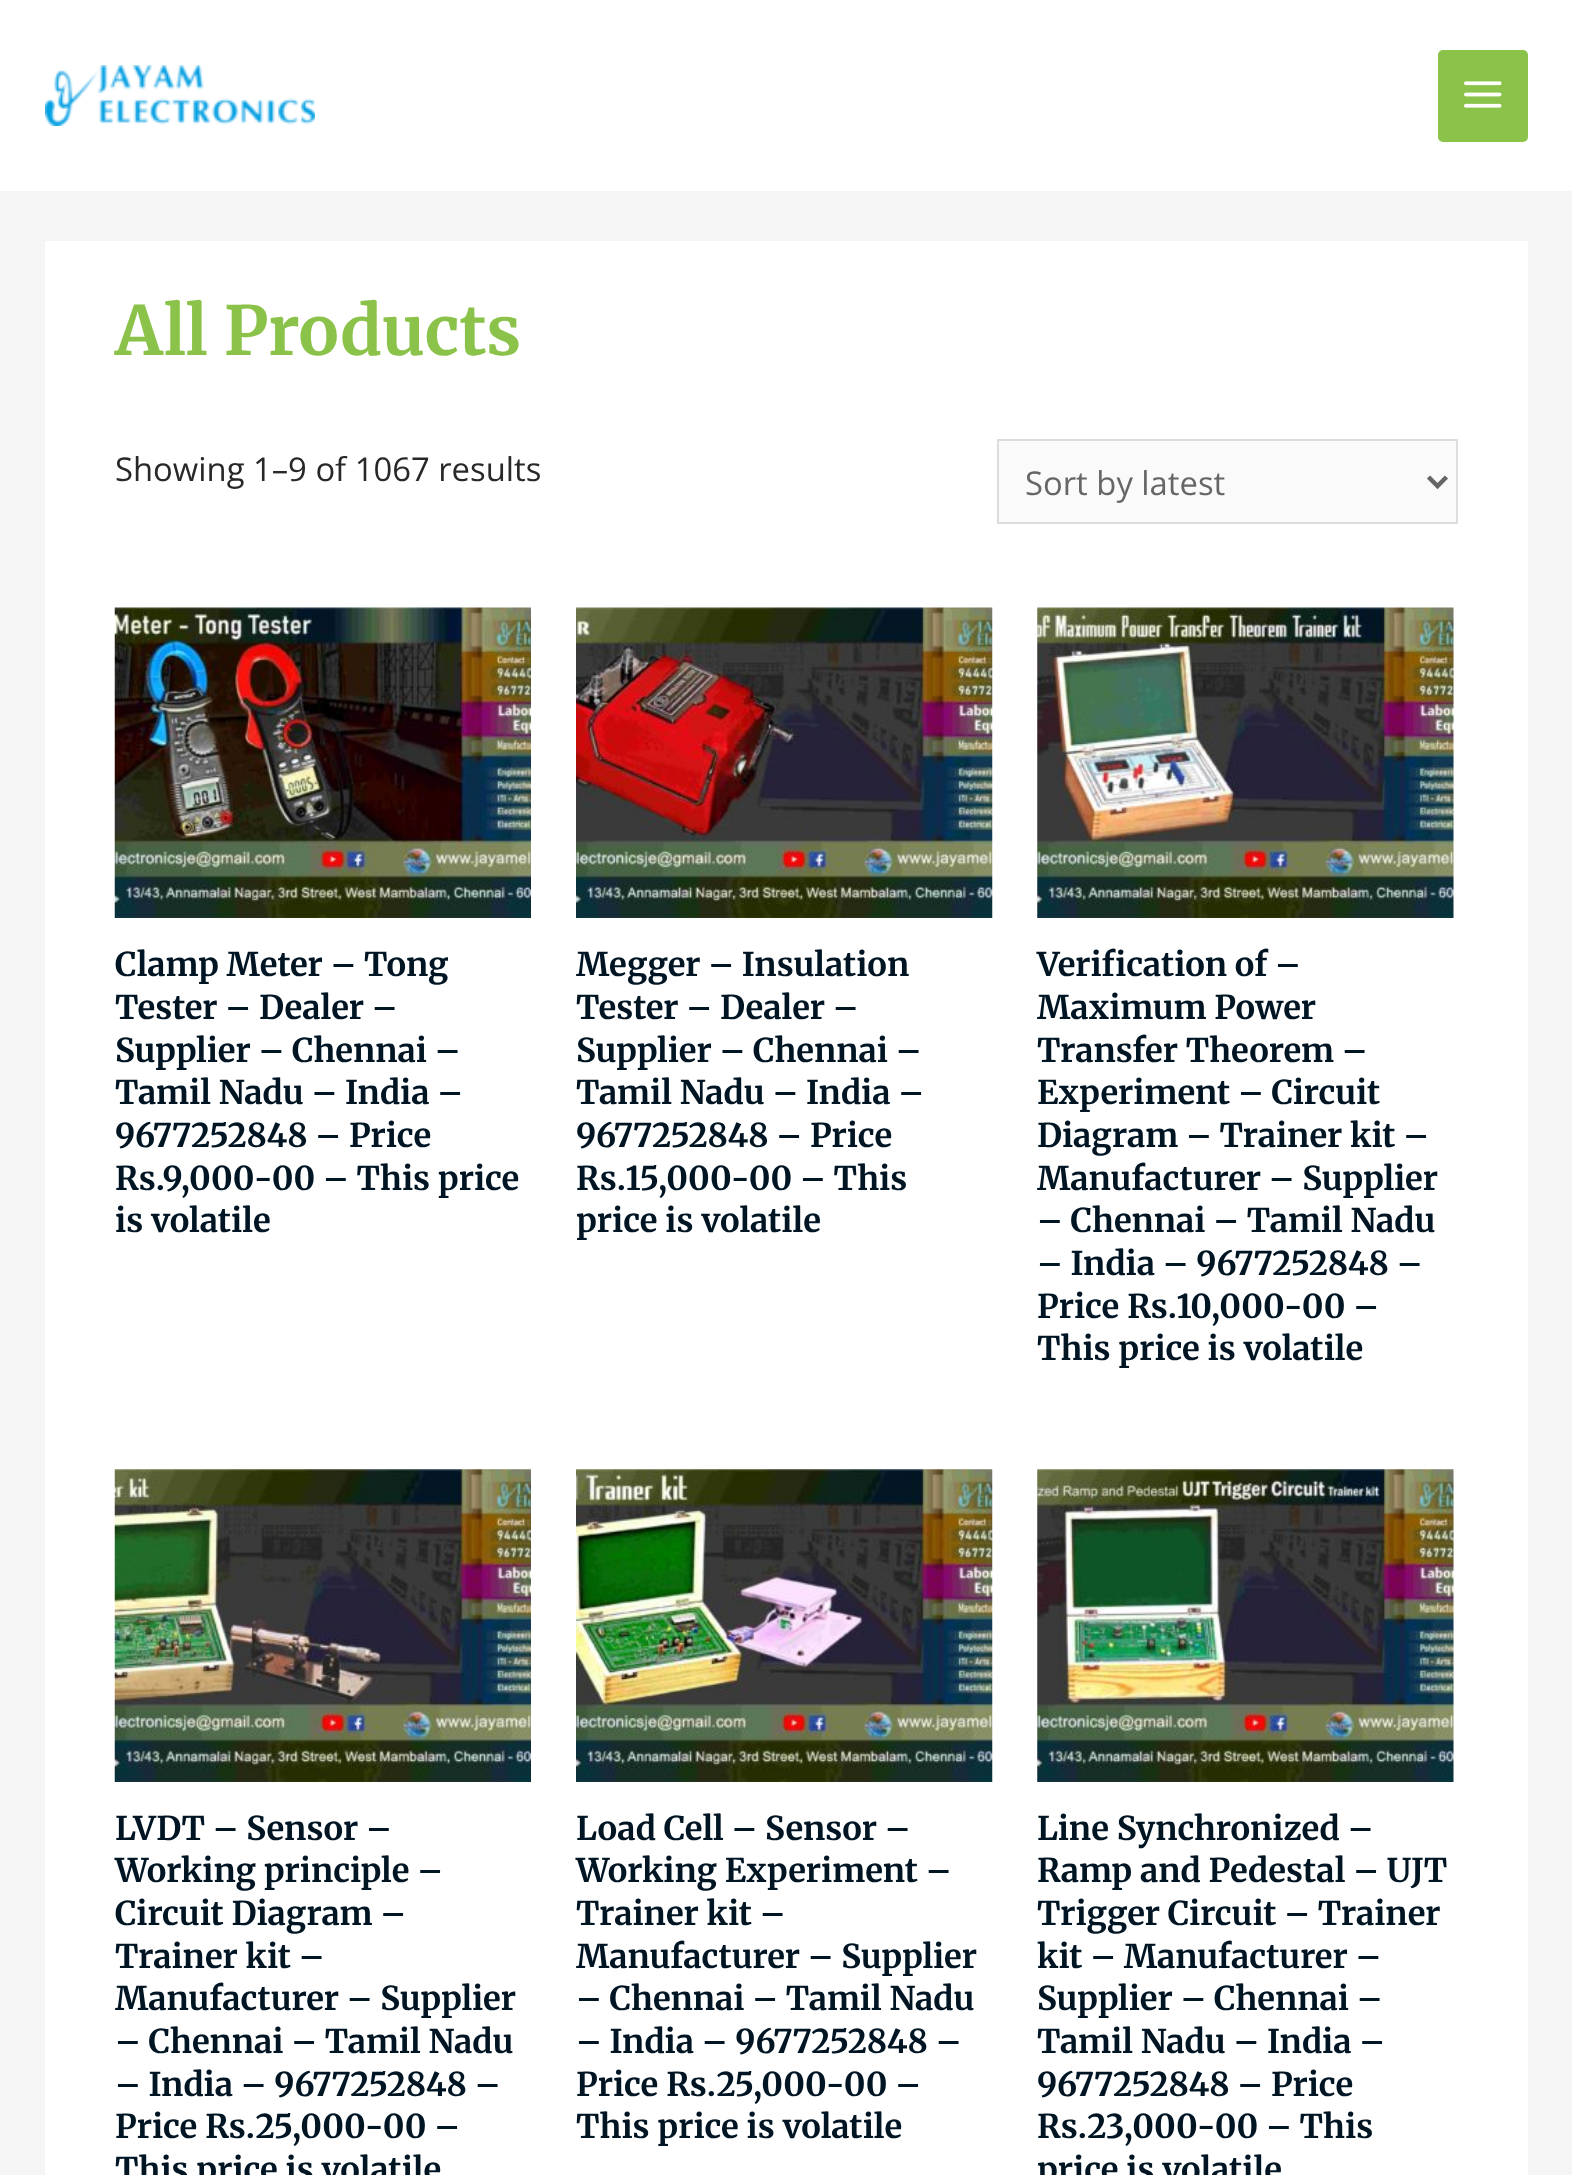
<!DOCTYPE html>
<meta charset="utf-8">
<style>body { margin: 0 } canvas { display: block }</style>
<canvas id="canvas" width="1572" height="2175"></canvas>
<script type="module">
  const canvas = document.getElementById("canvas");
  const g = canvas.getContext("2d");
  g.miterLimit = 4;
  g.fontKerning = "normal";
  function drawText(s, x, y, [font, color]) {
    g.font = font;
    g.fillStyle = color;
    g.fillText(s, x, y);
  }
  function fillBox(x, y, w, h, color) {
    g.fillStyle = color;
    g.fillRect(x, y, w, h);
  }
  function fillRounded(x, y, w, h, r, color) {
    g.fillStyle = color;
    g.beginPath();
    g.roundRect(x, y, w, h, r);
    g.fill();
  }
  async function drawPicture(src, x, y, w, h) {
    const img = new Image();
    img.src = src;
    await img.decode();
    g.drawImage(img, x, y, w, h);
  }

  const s1 = ["300 67.5px Merriweather", "#8BC34A"];
  const s2 = ["32.8px Open Sans", "#282828"];
  const s3 = ["32.8px Open Sans", "#666666"];
  const s4 = ["300 32.8px Merriweather", "#001524"];

  fillBox(0, 0, 1572, 2175, "#F5F5F5");
  fillBox(0, 0, 1572, 191, "#FFFFFF");
  await drawPicture("pic1.png", 45, 65, 270, 61);
  fillRounded(1438, 50, 90, 92, 5, "#8BC34A");
  await drawPicture("pic2.png", 1464, 81, 38, 27);
  fillBox(45, 241, 1483, 1934, "#FFFFFF");
  drawText("All Products", 115, 355, s1);
  drawText("Showing 1–9 of 1067 results", 115, 481, s2);
  g.fillStyle = "#FAFAFA";
  g.beginPath();
  g.rect(998, 440, 459, 83);
  g.fill();
  g.strokeStyle = "#DDDDDD";
  g.lineWidth = 2;
  g.stroke();
  g.beginPath();
  g.moveTo(1428.5, 477);
  g.lineTo(1437.5, 486);
  g.lineTo(1446.5, 477);
  g.strokeStyle = "#666666";
  g.lineWidth = 4.5;
  g.stroke();
  drawText("Sort by latest", 1025, 495, s3);
  await drawPicture("pic3.png", 114, 607, 417, 311);
  drawText("Clamp Meter – Tong", 115, 976, s4);
  drawText("Tester – Dealer –", 115, 1019, s4);
  drawText("Supplier – Chennai –", 115, 1062, s4);
  drawText("Tamil Nadu – India –", 115, 1104, s4);
  drawText("9677252848 – Price", 115, 1147, s4);
  drawText("Rs.9,000-00 – This price", 115, 1190, s4);
  drawText("is volatile", 115, 1232, s4);
  await drawPicture("pic4.png", 576, 607, 417, 311);
  drawText("Megger – Insulation", 576, 976, s4);
  drawText("Tester – Dealer –", 576, 1019, s4);
  drawText("Supplier – Chennai –", 576, 1062, s4);
  drawText("Tamil Nadu – India –", 576, 1104, s4);
  drawText("9677252848 – Price", 576, 1147, s4);
  drawText("Rs.15,000-00 – This", 576, 1190, s4);
  drawText("price is volatile", 576, 1232, s4);
  await drawPicture("pic5.png", 1037, 607, 417, 311);
  drawText("Verification of –", 1037, 976, s4);
  drawText("Maximum Power", 1037, 1019, s4);
  drawText("Transfer Theorem –", 1037, 1062, s4);
  drawText("Experiment – Circuit", 1037, 1104, s4);
  drawText("Diagram – Trainer kit –", 1037, 1147, s4);
  drawText("Manufacturer – Supplier", 1037, 1190, s4);
  drawText("– Chennai – Tamil Nadu", 1037, 1232, s4);
  drawText("– India – 9677252848 –", 1037, 1275, s4);
  drawText("Price Rs.10,000-00 –", 1037, 1318, s4);
  drawText("This price is volatile", 1037, 1360, s4);
  await drawPicture("pic6.png", 114, 1469, 417, 313);
  drawText("LVDT – Sensor –", 115, 1840, s4);
  drawText("Working principle –", 115, 1882, s4);
  drawText("Circuit Diagram –", 115, 1925, s4);
  drawText("Trainer kit –", 115, 1968, s4);
  drawText("Manufacturer – Supplier", 115, 2010, s4);
  drawText("– Chennai – Tamil Nadu", 115, 2053, s4);
  drawText("– India – 9677252848 –", 115, 2096, s4);
  drawText("Price Rs.25,000-00 –", 115, 2138, s4);
  drawText("This price is volatile", 115, 2181, s4);
  await drawPicture("pic7.png", 576, 1469, 417, 313);
  drawText("Load Cell – Sensor –", 576, 1840, s4);
  drawText("Working Experiment –", 576, 1882, s4);
  drawText("Trainer kit –", 576, 1925, s4);
  drawText("Manufacturer – Supplier", 576, 1968, s4);
  drawText("– Chennai – Tamil Nadu", 576, 2010, s4);
  drawText("– India – 9677252848 –", 576, 2053, s4);
  drawText("Price Rs.25,000-00 –", 576, 2096, s4);
  drawText("This price is volatile", 576, 2138, s4);
  await drawPicture("pic8.png", 1037, 1469, 417, 313);
  drawText("Line Synchronized –", 1037, 1840, s4);
  drawText("Ramp and Pedestal – UJT", 1037, 1882, s4);
  drawText("Trigger Circuit – Trainer", 1037, 1925, s4);
  drawText("kit – Manufacturer –", 1037, 1968, s4);
  drawText("Supplier – Chennai –", 1037, 2010, s4);
  drawText("Tamil Nadu – India –", 1037, 2053, s4);
  drawText("9677252848 – Price", 1037, 2096, s4);
  drawText("Rs.23,000-00 – This", 1037, 2138, s4);
  drawText("price is volatile", 1037, 2181, s4);
</script>
